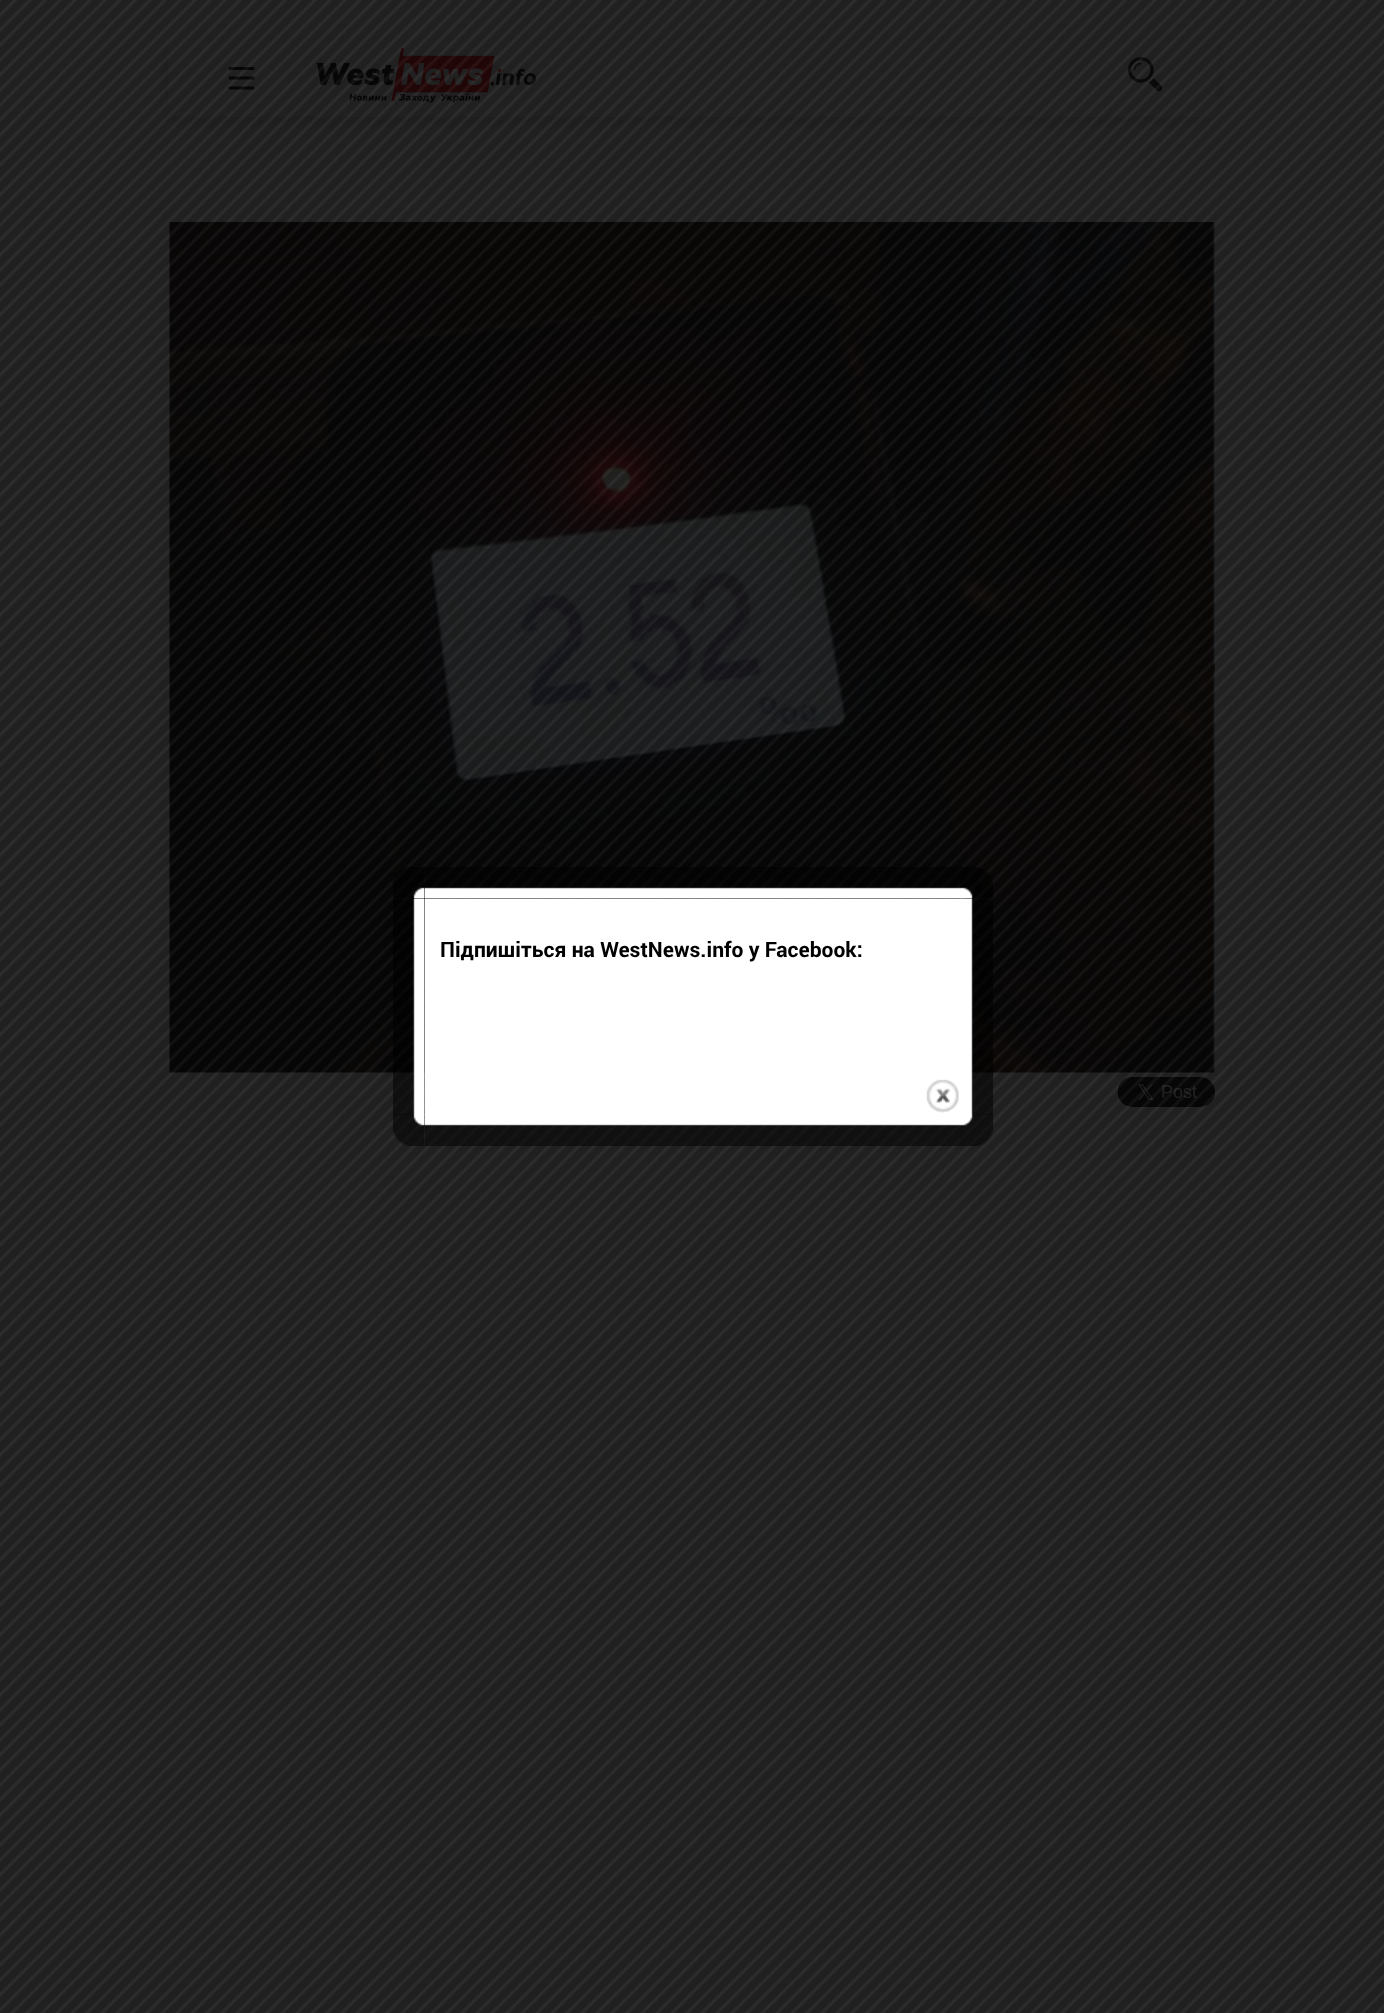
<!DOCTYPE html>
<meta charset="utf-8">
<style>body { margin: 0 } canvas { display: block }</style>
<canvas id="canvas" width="1384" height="2013"></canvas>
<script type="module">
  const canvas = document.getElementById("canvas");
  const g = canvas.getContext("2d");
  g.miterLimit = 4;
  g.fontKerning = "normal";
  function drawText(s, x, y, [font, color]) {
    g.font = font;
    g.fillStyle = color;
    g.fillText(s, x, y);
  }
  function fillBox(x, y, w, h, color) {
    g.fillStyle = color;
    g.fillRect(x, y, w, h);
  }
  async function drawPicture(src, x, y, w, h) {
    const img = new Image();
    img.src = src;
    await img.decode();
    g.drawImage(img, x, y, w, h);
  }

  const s1 = ["bold 21.1px Roboto", "#000000"];

  fillBox(0, 0, 1384, 2013, "#FFFFFF");
  g.save();
  g.beginPath();
  g.moveTo(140, 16);
  g.lineTo(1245, 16);
  g.lineTo(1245, 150);
  g.lineTo(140, 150);
  g.closePath();
  g.moveTo(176, 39);
  g.lineTo(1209, 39);
  g.bezierCurveTo(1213.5, 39, 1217, 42.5, 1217, 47);
  g.lineTo(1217, 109);
  g.bezierCurveTo(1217, 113.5, 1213.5, 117, 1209, 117);
  g.lineTo(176, 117);
  g.bezierCurveTo(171.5, 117, 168, 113.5, 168, 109);
  g.lineTo(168, 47);
  g.bezierCurveTo(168, 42.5, 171.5, 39, 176, 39);
  g.closePath();
  g.clip("evenodd");
  g.fillStyle = "rgba(0, 0, 0, 0.16)";
  g.filter = "blur(9px)";
  g.beginPath();
  g.roundRect(168, 44, 1049, 78, 8);
  g.fill();
  g.filter = "none";
  g.restore();
  g.beginPath();
  g.moveTo(253, 68.5);
  g.lineTo(230, 68.5);
  g.moveTo(253, 78);
  g.lineTo(230, 78);
  g.moveTo(230, 88);
  g.lineTo(253, 88);
  g.strokeStyle = "#000000";
  g.lineWidth = 3.1;
  g.lineCap = "round";
  g.stroke();
  await drawPicture("pic2.png", 317, 48, 219, 55);
  await drawPicture("pic3.png", 1128, 57, 35, 35);
  await drawPicture("pic4.png", 169, 222, 1046, 851);
  await drawPicture("pic5.png", 1117, 1077, 98, 30);
  await drawPicture("pic1.png", 0, 0, 1384, 2013);
  await drawPicture("pic6.png", 393, 867, 32, 32);
  await drawPicture("pic7.png", 425, 867, 537, 32);
  await drawPicture("pic8.png", 961, 867, 32, 32);
  await drawPicture("pic9.png", 393, 899, 32, 216);
  await drawPicture("pic11.png", 962, 899, 31, 216);
  await drawPicture("pic13.png", 425, 1115, 537, 31);
  await drawPicture("pic14.png", 961, 1114, 32, 32);
  fillBox(425, 899, 537, 216, "#FFFFFF");
  drawText("Підпишіться на WestNews.info у Facebook:", 440, 957, s1);
  await drawPicture("pic10.png", 926, 1079, 33, 34);
  await drawPicture("pic12.png", 393, 1114, 32, 32);
</script>
